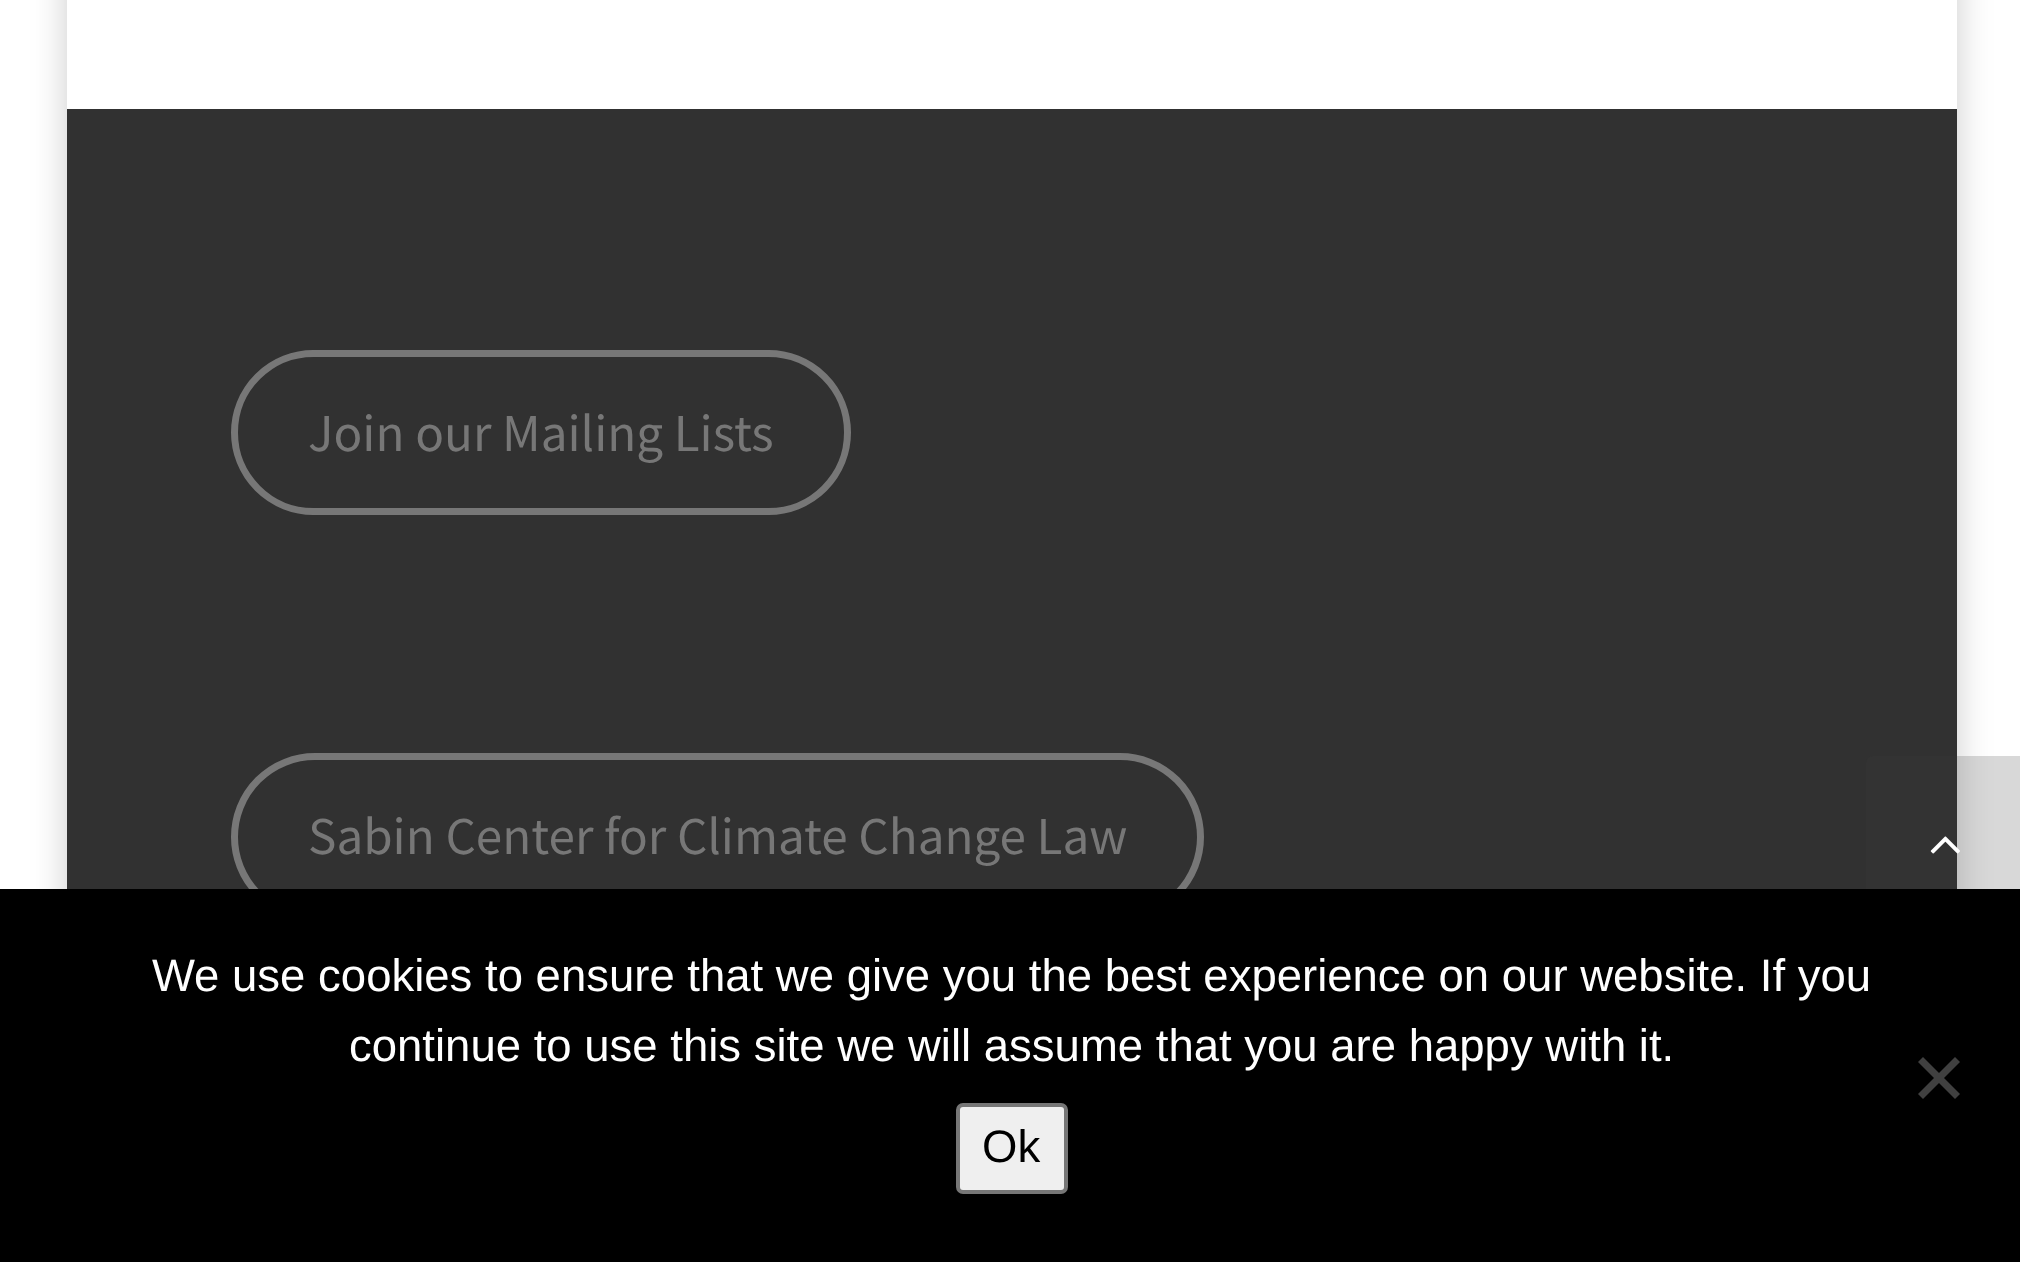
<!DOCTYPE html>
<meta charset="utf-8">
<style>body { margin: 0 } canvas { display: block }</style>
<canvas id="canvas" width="2020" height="1262"></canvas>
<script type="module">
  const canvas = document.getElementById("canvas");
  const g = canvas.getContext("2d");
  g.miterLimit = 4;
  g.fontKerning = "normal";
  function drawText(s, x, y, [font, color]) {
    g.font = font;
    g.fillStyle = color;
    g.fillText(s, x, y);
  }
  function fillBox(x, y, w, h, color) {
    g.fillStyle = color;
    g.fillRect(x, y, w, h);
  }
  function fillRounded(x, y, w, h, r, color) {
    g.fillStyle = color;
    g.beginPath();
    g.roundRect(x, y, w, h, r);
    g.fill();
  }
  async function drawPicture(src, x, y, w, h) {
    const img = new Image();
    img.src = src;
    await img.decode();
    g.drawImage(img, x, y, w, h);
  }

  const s1 = ["53.2px Source Sans Pro", "#777777"];
  const s2 = ["45.5px Liberation Sans", "#FFFFFF"];
  const s3 = ["45.5px Liberation Sans", "#000000"];

  fillBox(0, 0, 2020, 1262, "#FFFFFF");
  g.fillStyle = "rgba(0, 0, 0, 0.2)";
  g.filter = "blur(17.5px)";
  g.beginPath();
  g.rect(67, -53, 1890, 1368);
  g.fill();
  g.filter = "none";
  fillBox(67, 0, 1890, 109, "#FFFFFF");
  fillBox(67, 109, 1890, 780, "#313131");
  g.beginPath();
  g.roundRect(234.5, 353.5, 613, 158, 79);
  g.strokeStyle = "#777777";
  g.lineWidth = 7;
  g.stroke();
  drawText("Join our Mailing Lists", 308, 451, s1);
  g.beginPath();
  g.roundRect(234.5, 756.5, 966, 161, 80.5);
  g.stroke();
  drawText("Sabin Center for Climate Change Law", 308, 854, s1);
  fillRounded(1866, 756, 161, 158, 7, "rgba(59, 59, 59, 0.2)");
  await drawPicture("pic1.png", 1930, 836, 30, 18);
  fillBox(0, 889, 2020, 373, "#000000");
  drawText("We use cookies to ensure that we give you the best experience on our website. If you", 152, 991, s2);
  drawText("continue to use this site we will assume that you are happy with it.", 349, 1061, s2);
  g.fillStyle = "#404040";
  g.beginPath();
  g.moveTo(1955, 1057);
  g.lineTo(1960, 1062);
  g.lineTo(1923, 1099);
  g.lineTo(1918, 1094);
  g.closePath();
  g.fill();
  g.beginPath();
  g.moveTo(1918, 1062);
  g.lineTo(1923, 1057);
  g.lineTo(1960, 1094);
  g.lineTo(1955, 1099);
  g.closePath();
  g.fill();
  g.fillStyle = "#EFEFEF";
  g.beginPath();
  g.roundRect(958, 1105, 108, 87, 5);
  g.fill();
  g.strokeStyle = "#767676";
  g.lineWidth = 4;
  g.stroke();
  drawText("Ok", 982, 1162, s3);
</script>
